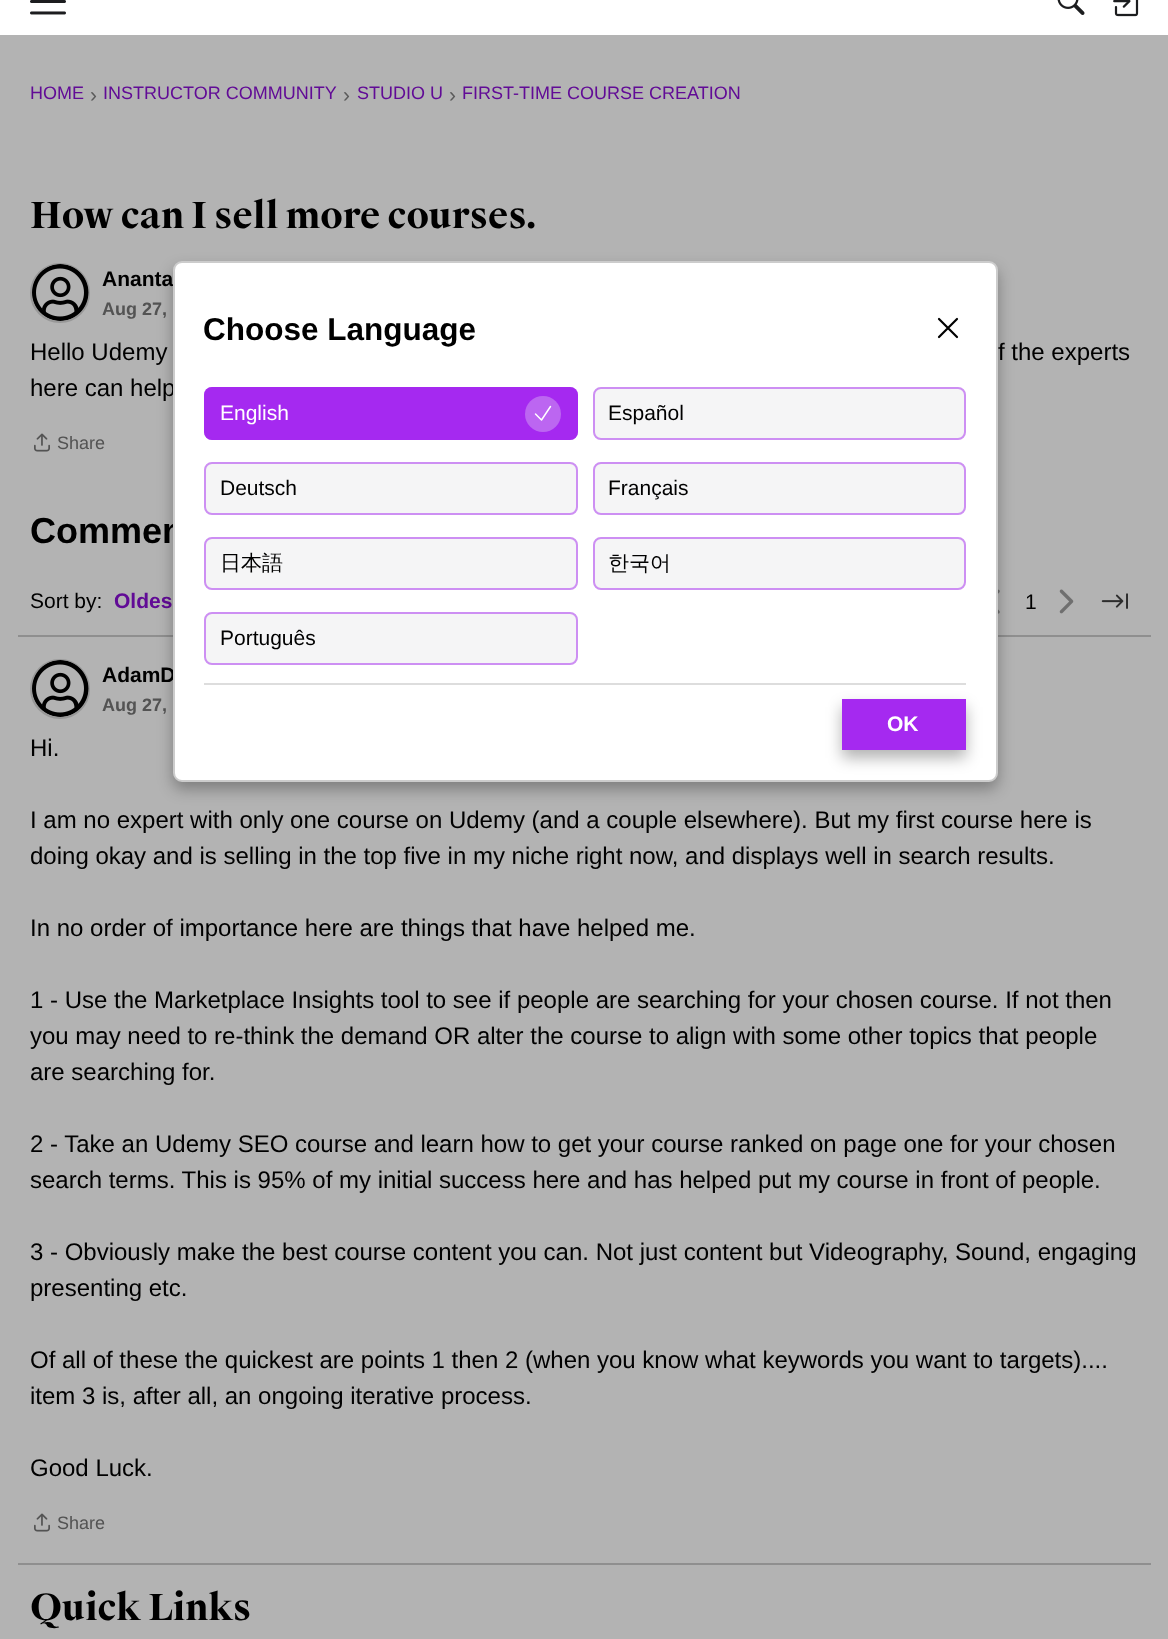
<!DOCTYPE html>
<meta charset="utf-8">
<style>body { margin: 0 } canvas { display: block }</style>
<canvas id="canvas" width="1168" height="1639"></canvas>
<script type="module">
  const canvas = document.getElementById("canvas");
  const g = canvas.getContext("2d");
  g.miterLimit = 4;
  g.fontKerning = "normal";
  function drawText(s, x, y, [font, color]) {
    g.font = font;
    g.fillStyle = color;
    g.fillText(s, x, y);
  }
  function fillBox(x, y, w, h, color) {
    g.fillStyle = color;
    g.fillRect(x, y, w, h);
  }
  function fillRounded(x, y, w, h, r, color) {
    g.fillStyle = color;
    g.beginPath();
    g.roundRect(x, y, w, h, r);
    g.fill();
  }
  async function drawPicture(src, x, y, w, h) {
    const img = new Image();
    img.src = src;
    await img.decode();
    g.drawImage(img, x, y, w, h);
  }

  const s1 = ["18px Liberation Sans", "#610B96"];
  const s2 = ["21px Liberation Sans", "#5A5A5A"];
  const s3 = ["bold 36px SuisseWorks", "#000000"];
  const s4 = ["bold 21px Liberation Sans", "#000000"];
  const s5 = ["bold 18px Liberation Sans", "#535353"];
  const s6 = ["24px Liberation Sans", "#000000"];
  const s7 = ["18px Liberation Sans", "#535353"];
  const s8 = ["bold 36px Liberation Sans", "#000000"];
  const s9 = ["21px Liberation Sans", "#000000"];
  const s10 = ["bold 21px Liberation Sans", "#610B96"];
  const s11 = ["bold 31.5px Liberation Sans", "#000000"];
  const s12 = ["21px Liberation Sans", "#FFFFFF"];
  const s13 = ["500 21px WenQuanYi Zen Hei", "#000000"];
  const s14 = ["bold 21px Liberation Sans", "#FFFFFF"];

  fillBox(0, 0, 1168, 1639, "#B3B3B3");
  fillBox(0, 0, 1168, 35, "#FFFFFF");
  await drawPicture("pic1.png", 30, 0, 36, 15);
  await drawPicture("pic2.png", 1057, 0, 28, 15);
  await drawPicture("pic3.png", 1113, 0, 26, 17);
  drawText("HOME", 30, 99, s1);
  drawText("›", 90, 102, s2);
  drawText("INSTRUCTOR COMMUNITY", 103, 99, s1);
  drawText("›", 343, 102, s2);
  drawText("STUDIO U", 357, 99, s1);
  drawText("›", 449, 102, s2);
  drawText("FIRST-TIME COURSE CREATION", 462, 99, s1);
  drawText("How can I sell more courses.", 30, 228, s3);
  g.beginPath();
  g.arc(60, 293, 29, 0, Math.PI * 2);
  g.strokeStyle = "#989898";
  g.lineWidth = 2;
  g.stroke();
  await drawPicture("pic4.png", 32, 264, 57, 57);
  drawText("Ananta", 102, 286, s4);
  drawText("Aug 27,", 102, 315, s5);
  drawText("Hello Udemy", 30, 360, s6);
  drawText("f the experts", 998, 360, s6);
  drawText("here can help", 30, 396, s6);
  await drawPicture("pic5.png", 34, 433, 16, 19);
  drawText("Share", 57, 449, s7);
  drawText("Commen", 30, 543, s8);
  drawText("Sort by:", 30, 608, s9);
  drawText("Oldes", 114, 608, s10);
  await drawPicture("pic6.png", 998, 589, 2, 25);
  drawText("1", 1025, 609, s9);
  await drawPicture("pic7.png", 1059, 589, 15, 25);
  await drawPicture("pic8.png", 1101, 593, 27, 16);
  fillBox(18, 635, 1133, 2, "#8F8F8F");
  g.beginPath();
  g.arc(60, 689, 29, 0, Math.PI * 2);
  g.stroke();
  await drawPicture("pic4.png", 32, 660, 57, 57);
  drawText("AdamD", 102, 682, s4);
  drawText("Aug 27,", 102, 711, s5);
  drawText("Hi.", 30, 756, s6);
  drawText("I am no expert with only one course on Udemy (and a couple elsewhere). But my first course here is", 30, 828, s6);
  drawText("doing okay and is selling in the top five in my niche right now, and displays well in search results.", 30, 864, s6);
  drawText("In no order of importance here are things that have helped me.", 30, 936, s6);
  drawText("1 - Use the Marketplace Insights tool to see if people are searching for your chosen course. If not then", 30, 1008, s6);
  drawText("you may need to re-think the demand OR alter the course to align with some other topics that people", 30, 1044, s6);
  drawText("are searching for.", 30, 1080, s6);
  drawText("2 - Take an Udemy SEO course and learn how to get your course ranked on page one for your chosen", 30, 1152, s6);
  drawText("search terms. This is 95% of my initial success here and has helped put my course in front of people.", 30, 1188, s6);
  drawText("3 - Obviously make the best course content you can. Not just content but Videography, Sound, engaging", 30, 1260, s6);
  drawText("presenting etc.", 30, 1296, s6);
  drawText("Of all of these the quickest are points 1 then 2 (when you know what keywords you want to targets)....", 30, 1368, s6);
  drawText("item 3 is, after all, an ongoing iterative process.", 30, 1404, s6);
  drawText("Good Luck.", 30, 1476, s6);
  await drawPicture("pic5.png", 34, 1513, 16, 19);
  drawText("Share", 57, 1529, s7);
  fillBox(18, 1563, 1133, 2, "#8F8F8F");
  drawText("Quick Links", 30, 1620, s3);
  g.fillStyle = "rgba(0, 0, 0, 0.3)";
  g.filter = "blur(7.5px)";
  g.beginPath();
  g.roundRect(173, 269, 825, 520, 9);
  g.fill();
  g.filter = "none";
  g.fillStyle = "#FFFFFF";
  g.beginPath();
  g.roundRect(174, 262, 823, 519, 8);
  g.fill();
  g.strokeStyle = "#CCCCCC";
  g.stroke();
  drawText("Choose Language", 203, 340, s11);
  g.beginPath();
  g.moveTo(939, 337);
  g.lineTo(957, 319);
  g.moveTo(939, 319);
  g.lineTo(957, 337);
  g.strokeStyle = "#000000";
  g.lineWidth = 2.2;
  g.lineCap = "round";
  g.lineJoin = "round";
  g.stroke();
  fillRounded(204, 387, 374, 53, 8, "#A529F0");
  g.beginPath();
  g.roundRect(205, 388, 372, 51, 7);
  g.strokeStyle = "rgba(165, 41, 240, 0.5)";
  g.lineWidth = 2;
  g.lineJoin = "miter";
  g.stroke();
  drawText("English", 220, 420, s12);
  g.fillStyle = "#BC66F1";
  g.beginPath();
  g.arc(543, 414, 18, 0, Math.PI * 2);
  g.fill();
  g.beginPath();
  g.moveTo(535.5, 414);
  g.lineTo(541.5, 420);
  g.lineTo(550.5, 406.5);
  g.strokeStyle = "#FFFFFF";
  g.lineWidth = 1.5;
  g.lineJoin = "round";
  g.stroke();
  fillRounded(593, 387, 373, 53, 8, "#F5F5F6");
  g.beginPath();
  g.roundRect(594, 388, 371, 51, 7);
  g.strokeStyle = "rgba(165, 41, 240, 0.5)";
  g.lineWidth = 2;
  g.lineJoin = "miter";
  g.stroke();
  drawText("Español", 608, 420, s9);
  fillRounded(204, 462, 374, 53, 8, "#F5F5F6");
  g.beginPath();
  g.roundRect(205, 463, 372, 51, 7);
  g.stroke();
  drawText("Deutsch", 220, 495, s9);
  fillRounded(593, 462, 373, 53, 8, "#F5F5F6");
  g.beginPath();
  g.roundRect(594, 463, 371, 51, 7);
  g.stroke();
  drawText("Français", 608, 495, s9);
  fillRounded(204, 537, 374, 53, 8, "#F5F5F6");
  g.beginPath();
  g.roundRect(205, 538, 372, 51, 7);
  g.stroke();
  drawText("日本語", 220, 570, s13);
  fillRounded(593, 537, 373, 53, 8, "#F5F5F6");
  g.beginPath();
  g.roundRect(594, 538, 371, 51, 7);
  g.stroke();
  drawText("한국어", 608, 570, s13);
  fillRounded(204, 612, 374, 53, 8, "#F5F5F6");
  g.beginPath();
  g.roundRect(205, 613, 372, 51, 7);
  g.stroke();
  drawText("Português", 220, 645, s9);
  fillBox(204, 683, 762, 2, "#DDDDDD");
  g.fillStyle = "rgba(0, 0, 0, 0.3)";
  g.filter = "blur(7.5px)";
  g.beginPath();
  g.rect(842, 707, 124, 51);
  g.fill();
  g.filter = "none";
  fillBox(842, 699, 124, 51, "#A529F0");
  drawText("OK", 887, 731, s14);
</script>
